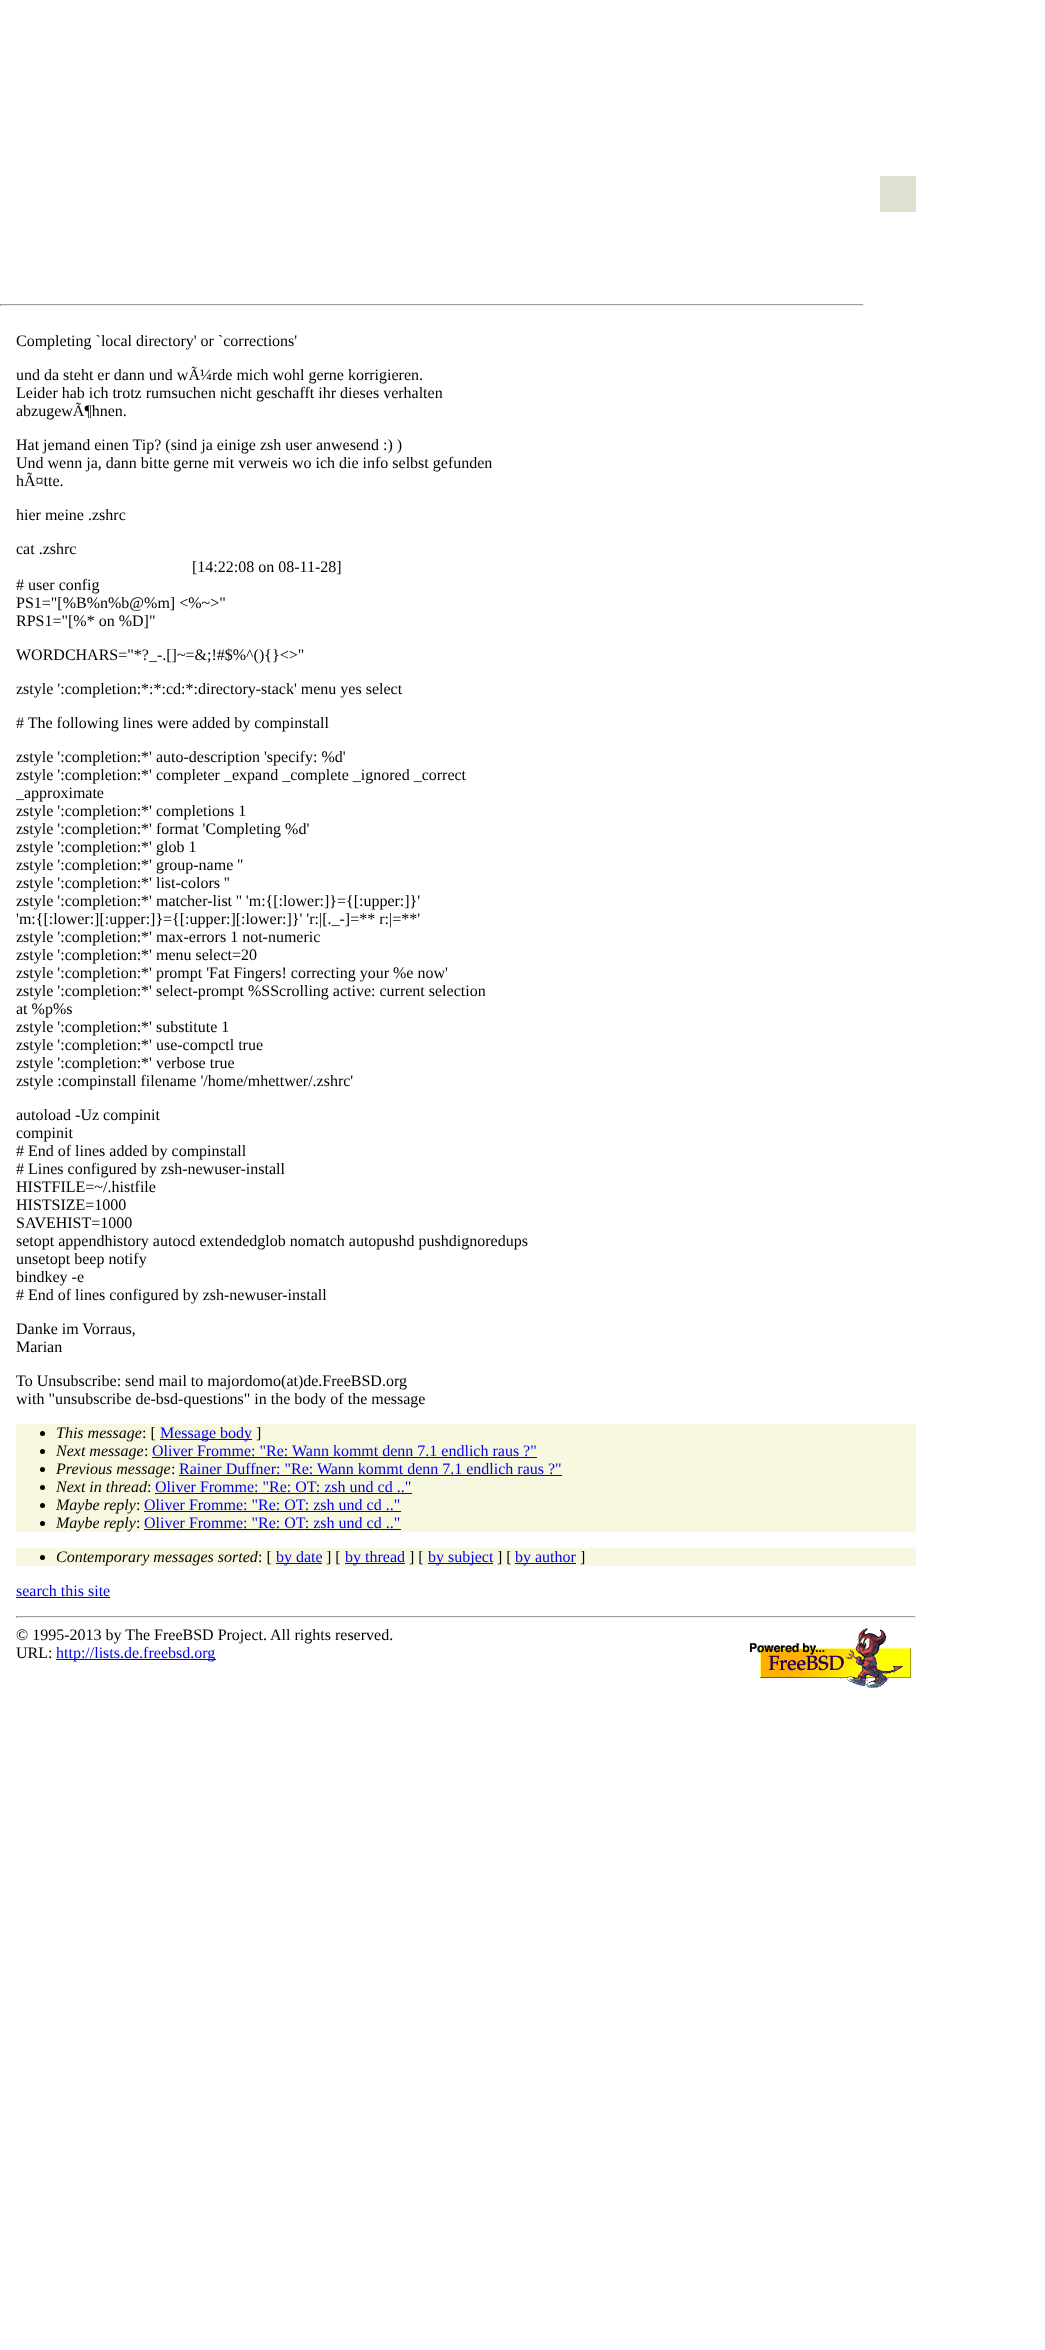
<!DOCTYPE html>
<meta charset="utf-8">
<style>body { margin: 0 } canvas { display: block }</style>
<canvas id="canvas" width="1045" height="2350"></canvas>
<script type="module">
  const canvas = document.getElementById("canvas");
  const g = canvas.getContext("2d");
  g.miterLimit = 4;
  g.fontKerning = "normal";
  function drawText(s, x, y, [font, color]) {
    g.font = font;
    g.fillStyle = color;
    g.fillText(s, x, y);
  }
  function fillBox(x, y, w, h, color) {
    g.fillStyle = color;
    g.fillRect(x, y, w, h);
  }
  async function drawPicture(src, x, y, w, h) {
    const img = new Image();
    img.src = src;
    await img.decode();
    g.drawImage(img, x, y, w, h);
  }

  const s1 = ["16px Liberation Serif", "#000000"];
  const s2 = ["italic 16px Liberation Serif", "#000000"];
  const s3 = ["16px Liberation Serif", "#0000EE"];

  fillBox(0, 0, 1045, 2350, "#FFFFFF");
  fillBox(0, 304, 864, 1, "#9F9F9F");
  fillBox(863, 304, 1, 2, "#EEEEEE");
  fillBox(0, 305, 864, 1, "#EEEEEE");
  fillBox(0, 304, 1, 2, "#9F9F9F");
  fillBox(880, 176, 36, 36, "#E0E0D0");
  drawText("Completing `local directory' or `corrections'", 16, 346, s1);
  drawText("und da steht er dann und wÃ¼rde mich wohl gerne korrigieren.", 16, 380, s1);
  drawText("Leider hab ich trotz rumsuchen nicht geschafft ihr dieses verhalten", 16, 398, s1);
  drawText("abzugewÃ¶hnen.", 16, 416, s1);
  drawText("Hat jemand einen Tip? (sind ja einige zsh user anwesend :) )", 16, 450, s1);
  drawText("Und wenn ja, dann bitte gerne mit verweis wo ich die info selbst gefunden", 16, 468, s1);
  drawText("hÃ¤tte.", 16, 486, s1);
  drawText("hier meine .zshrc", 16, 520, s1);
  drawText("cat .zshrc", 16, 554, s1);
  drawText("[14:22:08 on 08-11-28]", 192, 572, s1);
  drawText("# user config", 16, 590, s1);
  drawText("PS1=\"[%B%n%b@%m] <%~>\"", 16, 608, s1);
  drawText("RPS1=\"[%* on %D]\"", 16, 626, s1);
  drawText("WORDCHARS=\"*?_-.[]~=&;!#$%^(){}<>\"", 16, 660, s1);
  drawText("zstyle ':completion:*:*:cd:*:directory-stack' menu yes select", 16, 694, s1);
  drawText("# The following lines were added by compinstall", 16, 728, s1);
  drawText("zstyle ':completion:*' auto-description 'specify: %d'", 16, 762, s1);
  drawText("zstyle ':completion:*' completer _expand _complete _ignored _correct", 16, 780, s1);
  drawText("_approximate", 16, 798, s1);
  drawText("zstyle ':completion:*' completions 1", 16, 816, s1);
  drawText("zstyle ':completion:*' format 'Completing %d'", 16, 834, s1);
  drawText("zstyle ':completion:*' glob 1", 16, 852, s1);
  drawText("zstyle ':completion:*' group-name ''", 16, 870, s1);
  drawText("zstyle ':completion:*' list-colors ''", 16, 888, s1);
  drawText("zstyle ':completion:*' matcher-list '' 'm:{[:lower:]}={[:upper:]}'", 16, 906, s1);
  drawText("'m:{[:lower:][:upper:]}={[:upper:][:lower:]}' 'r:|[._-]=** r:|=**'", 16, 924, s1);
  drawText("zstyle ':completion:*' max-errors 1 not-numeric", 16, 942, s1);
  drawText("zstyle ':completion:*' menu select=20", 16, 960, s1);
  drawText("zstyle ':completion:*' prompt 'Fat Fingers! correcting your %e now'", 16, 978, s1);
  drawText("zstyle ':completion:*' select-prompt %SScrolling active: current selection", 16, 996, s1);
  drawText("at %p%s", 16, 1014, s1);
  drawText("zstyle ':completion:*' substitute 1", 16, 1032, s1);
  drawText("zstyle ':completion:*' use-compctl true", 16, 1050, s1);
  drawText("zstyle ':completion:*' verbose true", 16, 1068, s1);
  drawText("zstyle :compinstall filename '/home/mhettwer/.zshrc'", 16, 1086, s1);
  drawText("autoload -Uz compinit", 16, 1120, s1);
  drawText("compinit", 16, 1138, s1);
  drawText("# End of lines added by compinstall", 16, 1156, s1);
  drawText("# Lines configured by zsh-newuser-install", 16, 1174, s1);
  drawText("HISTFILE=~/.histfile", 16, 1192, s1);
  drawText("HISTSIZE=1000", 16, 1210, s1);
  drawText("SAVEHIST=1000", 16, 1228, s1);
  drawText("setopt appendhistory autocd extendedglob nomatch autopushd pushdignoredups", 16, 1246, s1);
  drawText("unsetopt beep notify", 16, 1264, s1);
  drawText("bindkey -e", 16, 1282, s1);
  drawText("# End of lines configured by zsh-newuser-install", 16, 1300, s1);
  drawText("Danke im Vorraus,", 16, 1334, s1);
  drawText("Marian", 16, 1352, s1);
  drawText("To Unsubscribe: send mail to majordomo(at)de.FreeBSD.org", 16, 1386, s1);
  drawText("with \"unsubscribe de-bsd-questions\" in the body of the message", 16, 1404, s1);
  fillBox(16, 1424, 900, 108, "#F8F8E0");
  g.fillStyle = "#000000";
  g.beginPath();
  g.arc(42.5, 1433.5, 2.5, 0, Math.PI * 2);
  g.fill();
  drawText("This message", 56, 1438, s2);
  drawText(": [", 142, 1438, s1);
  fillBox(160, 1439, 92, 1, "#0000EE");
  drawText("Message body", 160, 1438, s3);
  drawText("]", 256, 1438, s1);
  g.beginPath();
  g.arc(42.5, 1451.5, 2.5, 0, Math.PI * 2);
  g.fill();
  drawText("Next message", 56, 1456, s2);
  drawText(":", 144, 1456, s1);
  drawText("Oliver Fromme: \"Re: Wann kommt denn 7.1 endlich raus ?\"", 152, 1456, s3);
  fillBox(152, 1457, 385, 1, "#0000EE");
  g.fillStyle = "#000000";
  g.beginPath();
  g.arc(42.5, 1469.5, 2.5, 0, Math.PI * 2);
  g.fill();
  drawText("Previous message", 56, 1474, s2);
  drawText(":", 171, 1474, s1);
  drawText("Rainer Duffner: \"Re: Wann kommt denn 7.1 endlich raus ?\"", 179, 1474, s3);
  fillBox(179, 1475, 383, 1, "#0000EE");
  g.fillStyle = "#000000";
  g.beginPath();
  g.arc(42.5, 1487.5, 2.5, 0, Math.PI * 2);
  g.fill();
  drawText("Next in thread", 56, 1492, s2);
  drawText(":", 147, 1492, s1);
  drawText("Oliver Fromme: \"Re: OT: zsh und cd ..\"", 155, 1492, s3);
  fillBox(155, 1493, 257, 1, "#0000EE");
  g.fillStyle = "#000000";
  g.beginPath();
  g.arc(42.5, 1505.5, 2.5, 0, Math.PI * 2);
  g.fill();
  drawText("Maybe reply", 56, 1510, s2);
  drawText(":", 136, 1510, s1);
  drawText("Oliver Fromme: \"Re: OT: zsh und cd ..\"", 144, 1510, s3);
  fillBox(144, 1511, 257, 1, "#0000EE");
  g.fillStyle = "#000000";
  g.beginPath();
  g.arc(42.5, 1523.5, 2.5, 0, Math.PI * 2);
  g.fill();
  drawText("Maybe reply", 56, 1528, s2);
  drawText(":", 136, 1528, s1);
  drawText("Oliver Fromme: \"Re: OT: zsh und cd ..\"", 144, 1528, s3);
  fillBox(144, 1529, 257, 1, "#0000EE");
  fillBox(16, 1548, 900, 18, "#F8F8E0");
  g.fillStyle = "#000000";
  g.beginPath();
  g.arc(42.5, 1557.5, 2.5, 0, Math.PI * 2);
  g.fill();
  drawText("Contemporary messages sorted", 56, 1562, s2);
  drawText(": [", 258, 1562, s1);
  fillBox(276, 1563, 46, 1, "#0000EE");
  drawText("by date", 276, 1562, s3);
  drawText("] [", 326, 1562, s1);
  fillBox(345, 1563, 60, 1, "#0000EE");
  drawText("by thread", 345, 1562, s3);
  drawText("] [", 409, 1562, s1);
  fillBox(428, 1563, 65, 1, "#0000EE");
  drawText("by subject", 428, 1562, s3);
  drawText("] [", 497, 1562, s1);
  fillBox(515, 1563, 61, 1, "#0000EE");
  drawText("by author", 515, 1562, s3);
  drawText("]", 580, 1562, s1);
  drawText("search this site", 16, 1596, s3);
  fillBox(16, 1597, 94, 1, "#0000EE");
  fillBox(16, 1616, 900, 1, "#9F9F9F");
  fillBox(915, 1616, 1, 2, "#EEEEEE");
  fillBox(16, 1617, 900, 1, "#EEEEEE");
  fillBox(16, 1616, 1, 2, "#9F9F9F");
  drawText("© 1995-2013 by The FreeBSD Project. All rights reserved.", 16, 1640, s1);
  await drawPicture("pic1.png", 750, 1628, 161, 60);
  drawText("URL:", 16, 1658, s1);
  fillBox(56, 1659, 160, 1, "#0000EE");
  drawText("http://lists.de.freebsd.org", 56, 1658, s3);
</script>
